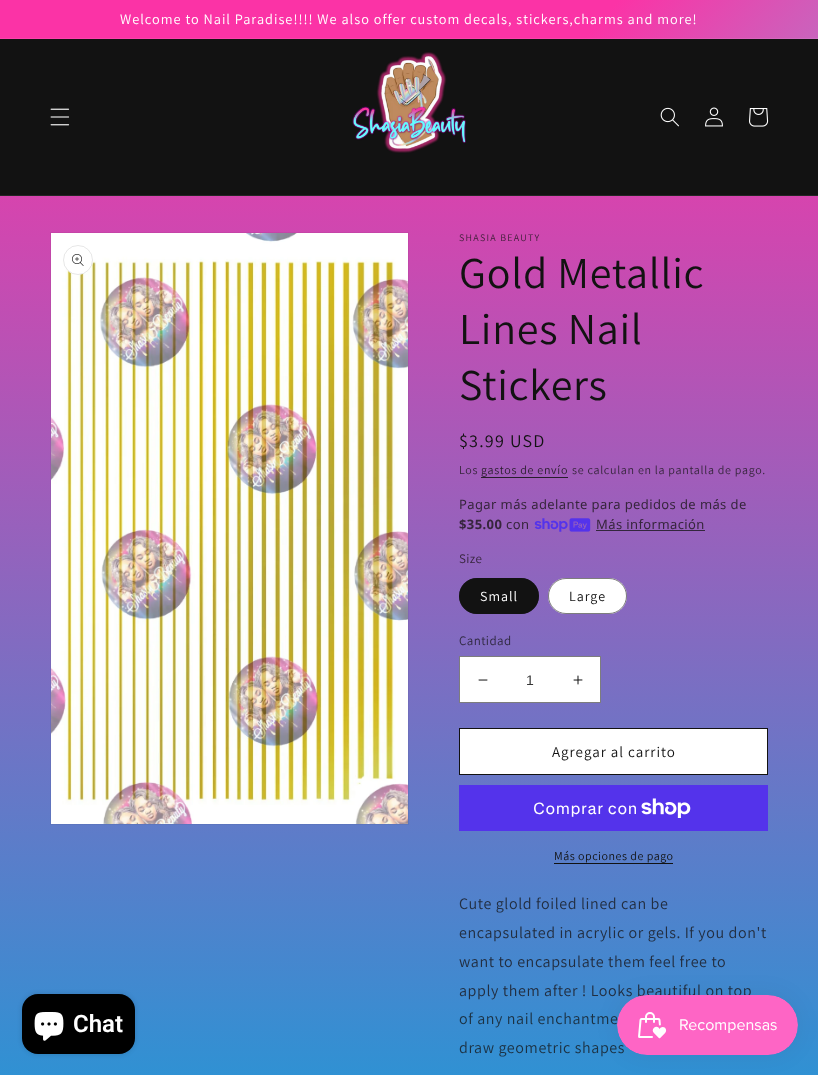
<!DOCTYPE html>
<meta charset="utf-8">
<style>body { margin: 0 } canvas { display: block }</style>
<canvas id="canvas" width="818" height="1075"></canvas>
<script type="module">
  const canvas = document.getElementById("canvas");
  const g = canvas.getContext("2d");
  g.miterLimit = 4;
  g.fontKerning = "normal";
  function drawText(s, x, y, [font, color]) {
    g.font = font;
    g.fillStyle = color;
    g.fillText(s, x, y);
  }
  function fillBox(x, y, w, h, color) {
    g.fillStyle = color;
    g.fillRect(x, y, w, h);
  }
  function fillRounded(x, y, w, h, r, color) {
    g.fillStyle = color;
    g.beginPath();
    g.roundRect(x, y, w, h, r);
    g.fill();
  }
  async function drawPicture(src, x, y, w, h) {
    const img = new Image();
    img.src = src;
    await img.decode();
    g.drawImage(img, x, y, w, h);
  }
  let gradient;

  const s1 = ["14.3px Assistant", "#FFFFFF"];
  const s2 = ["10px Assistant", "#41203A"];
  const s3 = ["44px Assistant", "#121212"];
  const s4 = ["18px Assistant", "#121212"];
  const s5 = ["12px Assistant", "#36253C"];
  const s6 = ["12px Assistant", "#281D2B"];
  const s7 = ["13px Noto Sans", "#36253C"];
  const s8 = ["bold 13px Noto Sans", "#36253C"];
  const s9 = ["13px Assistant", "#36253C"];
  const s10 = ["14px Assistant", "#FFFFFF"];
  const s11 = ["14px Assistant", "#121212"];
  const s12 = ["13px Assistant", "#2E283E"];
  const s13 = ["14px Liberation Sans", "#363636"];
  const s14 = ["15px Assistant", "#121212"];
  const s15 = ["16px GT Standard", "#FFFFFF"];
  const s16 = ["12px Assistant", "#121212"];
  const s17 = ["16px Assistant", "#222E41"];
  const s18 = ["16px Assistant", "#1C3142"];
  const s19 = ["600 24px Roboto", "#FFFFFF"];

  fillBox(0, 0, 818, 1075, "#FFFFFF");
  gradient = g.createLinearGradient(409, 0, 409, 1075);
  gradient.addColorStop(0, "#FB33A6");
  gradient.addColorStop(1, "#3091D3");
  g.fillStyle = gradient;
  g.fillRect(0, 196, 818, 879);
  gradient = g.createLinearGradient(-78, 83, 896, 992);
  gradient.addColorStop(0.34, "#FB33A6");
  gradient.addColorStop(0.77, "#53D6F2");
  g.fillStyle = gradient;
  g.fillRect(0, 0, 818, 38);
  gradient = g.createLinearGradient(-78, 83, 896, 992);
  gradient.addColorStop(0.34, "#FB43AD");
  gradient.addColorStop(0.77, "#61D9F3");
  g.fillStyle = gradient;
  g.fillRect(0, 38, 818, 1);
  g.letterSpacing = "1px";
  drawText("Welcome to Nail Paradise!!!! We also offer custom decals, stickers,charms and more!", 120, 24, s1);
  fillBox(0, 39, 818, 156, "#121212");
  fillBox(0, 195, 818, 1, "#252525");
  await drawPicture("pic1.png", 50, 108, 20, 18);
  await drawPicture("pic2.png", 352, 52, 114, 101);
  await drawPicture("pic3.png", 660, 107, 19, 20);
  await drawPicture("pic4.png", 705, 107, 18, 20);
  await drawPicture("pic5.png", 749, 108, 20, 19);
  g.strokeStyle = "rgba(18, 18, 18, 0.05)";
  g.strokeRect(50.5, 232.5, 358, 592);
  await drawPicture("pic6.png", 51, 233, 357, 591);
  g.fillStyle = "#FFFFFF";
  g.beginPath();
  g.arc(78, 260, 15, 0, Math.PI * 2);
  g.fill();
  g.beginPath();
  g.arc(78, 260, 14.5, 0, Math.PI * 2);
  g.strokeStyle = "rgba(18, 18, 18, 0.1)";
  g.stroke();
  await drawPicture("pic7.png", 72, 254, 12, 12);
  g.letterSpacing = "1.25px";
  drawText("SHASIA BEAUTY", 459, 241, s2);
  g.letterSpacing = "0.7px";
  drawText("Gold Metallic", 459, 288, s3);
  drawText("Lines Nail", 459, 344, s3);
  drawText("Stickers", 459, 400, s3);
  g.letterSpacing = "1.25px";
  drawText("$3.99 USD", 459, 447, s4);
  g.letterSpacing = "0.7px";
  drawText("Los", 459, 474, s5);
  drawText("gastos de envío", 481, 474, s6);
  fillBox(481, 477, 87, 1, "#271D2B");
  drawText("se calculan en la pantalla de pago.", 572, 474, s5);
  g.letterSpacing = "0.4px";
  drawText("Pagar más adelante para pedidos de más de", 459, 509, s7);
  drawText("$35.00", 459, 529, s8);
  drawText("con", 506, 529, s7);
  await drawPicture("pic8.png", 534, 518, 57, 14);
  drawText("Más información", 596, 529, s7);
  fillBox(596, 530, 109, 1, "#33263D");
  drawText("Size", 459, 563, s9);
  fillRounded(459, 578, 80, 36, 18, "#121212");
  g.beginPath();
  g.roundRect(459.5, 578.5, 79, 35, 17.5);
  g.strokeStyle = "rgba(18, 18, 18, 0.55)";
  g.stroke();
  g.letterSpacing = "1px";
  drawText("Small", 480, 601, s10);
  fillRounded(548, 578, 79, 36, 18, "#FFFFFF");
  g.beginPath();
  g.roundRect(548.5, 578.5, 78, 35, 17.5);
  g.stroke();
  drawText("Large", 569, 601, s11);
  g.letterSpacing = "0.4px";
  drawText("Cantidad", 459, 645, s12);
  fillBox(460, 657, 140, 45, "#FFFFFF");
  await drawPicture("pic9.png", 478, 679, 10, 2);
  await drawPicture("pic10.png", 573, 675, 10, 10);
  g.strokeStyle = "#7D7D7D";
  g.strokeRect(459.5, 656.5, 141, 46);
  g.letterSpacing = "0px";
  drawText("1", 526, 685, s13);
  fillBox(460, 729, 307, 45, "#FFFFFF");
  g.strokeStyle = "#121212";
  g.strokeRect(459.5, 728.5, 308, 46);
  g.letterSpacing = "1px";
  drawText("Agregar al carrito", 552, 757, s14);
  fillBox(459, 785, 309, 46, "#5433EB");
  g.letterSpacing = "0.6px";
  drawText("Comprar con", 533, 814, s15);
  await drawPicture("pic11.png", 641, 798, 50, 20);
  g.letterSpacing = "0.5px";
  drawText("Más opciones de pago", 554, 860, s16);
  fillBox(554, 863, 119, 1, "#121212");
  g.letterSpacing = "0.6px";
  drawText("Cute glold foiled lined can be", 459, 909, s17);
  drawText("encapsulated in acrylic or gels. If you don't", 459, 938, s17);
  drawText("want to encapsulate them feel free to", 459, 967, s17);
  drawText("apply them after ! Looks beautiful on top", 459, 996, s17);
  drawText("of any nail enchantme", 459, 1024, s18);
  drawText("draw geometric shapes", 459, 1053, s18);
  g.fillStyle = "rgba(0, 0, 0, 0.15)";
  g.filter = "blur(2.5px)";
  g.beginPath();
  g.roundRect(22, 994, 113, 60, 16);
  g.fill();
  g.filter = "none";
  fillRounded(22, 994, 113, 60, 16, "#000000");
  await drawPicture("pic12.png", 34, 1012, 30, 29);
  g.letterSpacing = "0px";
  drawText("Chat", 73, 1032, s19);
  g.fillStyle = "rgba(0, 0, 0, 0.05)";
  g.filter = "blur(12.5px)";
  g.beginPath();
  g.roundRect(617, 995, 181, 60, 30);
  g.fill();
  g.filter = "none";
  await drawPicture("pic13.png", 617, 995, 181, 60);
</script>
